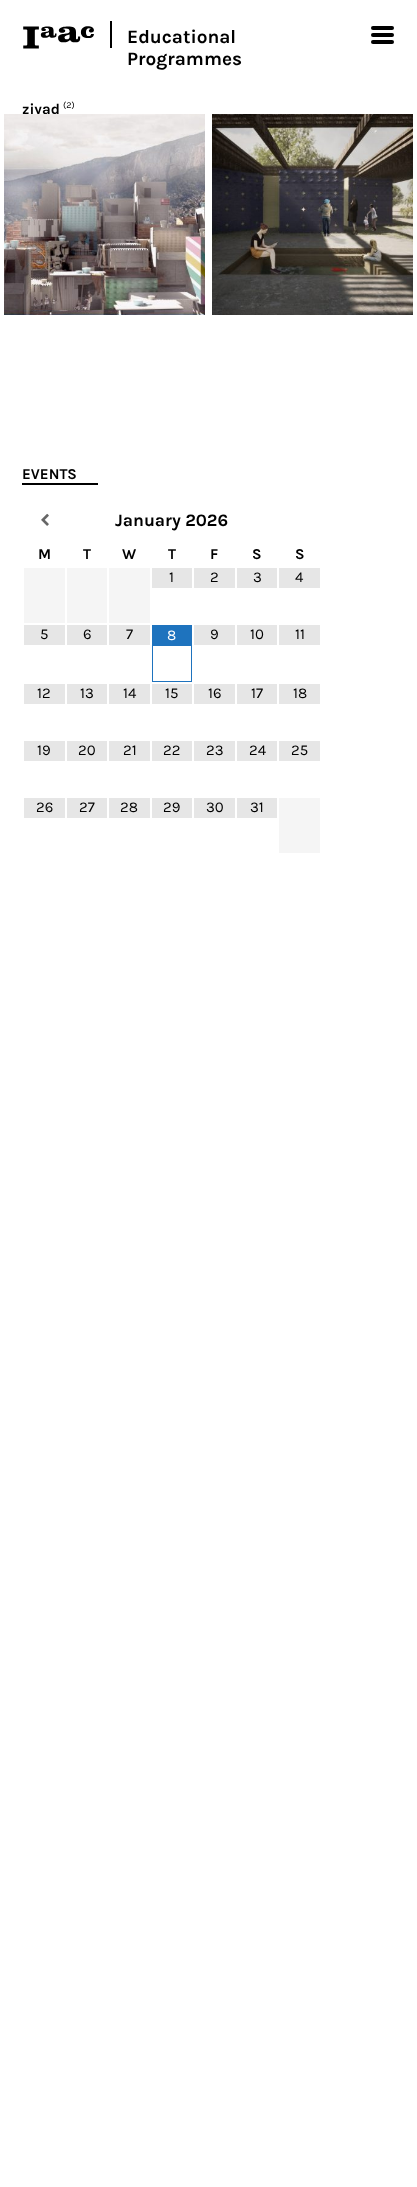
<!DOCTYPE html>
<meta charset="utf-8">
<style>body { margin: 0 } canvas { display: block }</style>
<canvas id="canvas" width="417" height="2187"></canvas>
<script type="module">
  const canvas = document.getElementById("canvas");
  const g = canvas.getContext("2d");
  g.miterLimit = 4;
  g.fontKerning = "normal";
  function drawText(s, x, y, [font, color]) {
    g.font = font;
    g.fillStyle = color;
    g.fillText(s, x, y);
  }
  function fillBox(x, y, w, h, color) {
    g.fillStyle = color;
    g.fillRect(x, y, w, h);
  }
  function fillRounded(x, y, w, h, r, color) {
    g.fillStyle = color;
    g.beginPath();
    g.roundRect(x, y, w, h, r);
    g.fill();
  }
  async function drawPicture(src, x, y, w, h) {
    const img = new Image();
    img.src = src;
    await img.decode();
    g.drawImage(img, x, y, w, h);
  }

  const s1 = ["bold 19px Karla", "#000000"];
  const s2 = ["bold 15px Karla", "#000000"];
  const s3 = ["9px Karla", "#000000"];
  const s4 = ["bold 17.5px Karla", "#000000"];
  const s5 = ["15px Karla", "#000000"];
  const s6 = ["15px Karla", "#FFFFFF"];

  fillBox(0, 0, 417, 2187, "#FFFFFF");
  await drawPicture("pic1.png", 23, 26, 71, 23);
  fillBox(110, 21, 2, 27, "#000000");
  drawText("Educational", 127, 43, s1);
  drawText("Programmes", 127, 65, s1);
  fillRounded(371, 26, 23, 4, 2, "#000000");
  fillRounded(371, 33, 23, 4, 2, "#000000");
  fillRounded(371, 40, 23, 4, 2, "#000000");
  drawText("ziyad", 22, 114, s2);
  drawText("(2)", 63, 108, s3);
  drawText("EVENTS", 22, 479, s2);
  fillBox(22, 483, 76, 2, "#000000");
  await drawPicture("pic2.png", 41, 513, 8, 13);
  drawText("January 2026", 115, 526, s4);
  drawText("M", 38, 559, s2);
  drawText("T", 83, 559, s2);
  drawText("W", 122, 559, s2);
  drawText("T", 168, 559, s2);
  drawText("F", 210, 559, s2);
  drawText("S", 252, 559, s2);
  drawText("S", 295, 559, s2);
  fillBox(24, 568, 41, 55, "#F5F5F5");
  fillBox(67, 568, 40, 55, "#F5F5F5");
  fillBox(109, 568, 41, 55, "#F5F5F5");
  fillBox(152, 568, 40, 20, "#E6E6E6");
  drawText("1", 169, 582, s5);
  fillBox(194, 568, 41, 20, "#E6E6E6");
  drawText("2", 210, 582, s5);
  fillBox(237, 568, 40, 20, "#E6E6E6");
  drawText("3", 253, 582, s5);
  fillBox(279, 568, 41, 20, "#E6E6E6");
  drawText("4", 295, 582, s5);
  fillBox(24, 625, 41, 20, "#E6E6E6");
  drawText("5", 40, 639, s5);
  fillBox(67, 625, 40, 20, "#E6E6E6");
  drawText("6", 83, 639, s5);
  fillBox(109, 625, 41, 20, "#E6E6E6");
  drawText("7", 126, 639, s5);
  g.strokeStyle = "#1E73BE";
  g.strokeRect(152.5, 625.5, 39, 56);
  fillBox(153, 626, 38, 20, "#1E73BE");
  drawText("8", 167, 640, s6);
  fillBox(194, 625, 41, 20, "#E6E6E6");
  drawText("9", 210, 639, s5);
  fillBox(237, 625, 40, 20, "#E6E6E6");
  drawText("10", 250, 639, s5);
  fillBox(279, 625, 41, 20, "#E6E6E6");
  drawText("11", 295, 639, s5);
  fillBox(24, 684, 41, 20, "#E6E6E6");
  drawText("12", 37, 698, s5);
  fillBox(67, 684, 40, 20, "#E6E6E6");
  drawText("13", 80, 698, s5);
  fillBox(109, 684, 41, 20, "#E6E6E6");
  drawText("14", 123, 698, s5);
  fillBox(152, 684, 40, 20, "#E6E6E6");
  drawText("15", 165, 698, s5);
  fillBox(194, 684, 41, 20, "#E6E6E6");
  drawText("16", 208, 698, s5);
  fillBox(237, 684, 40, 20, "#E6E6E6");
  drawText("17", 251, 698, s5);
  fillBox(279, 684, 41, 20, "#E6E6E6");
  drawText("18", 293, 698, s5);
  fillBox(24, 741, 41, 20, "#E6E6E6");
  drawText("19", 37, 755, s5);
  fillBox(67, 741, 40, 20, "#E6E6E6");
  drawText("20", 78, 755, s5);
  fillBox(109, 741, 41, 20, "#E6E6E6");
  drawText("21", 123, 755, s5);
  fillBox(152, 741, 40, 20, "#E6E6E6");
  drawText("22", 163, 755, s5);
  fillBox(194, 741, 41, 20, "#E6E6E6");
  drawText("23", 206, 755, s5);
  fillBox(237, 741, 40, 20, "#E6E6E6");
  drawText("24", 249, 755, s5);
  fillBox(279, 741, 41, 20, "#E6E6E6");
  drawText("25", 291, 755, s5);
  fillBox(24, 798, 41, 20, "#E6E6E6");
  drawText("26", 36, 812, s5);
  fillBox(67, 798, 40, 20, "#E6E6E6");
  drawText("27", 79, 812, s5);
  fillBox(109, 798, 41, 20, "#E6E6E6");
  drawText("28", 120, 812, s5);
  fillBox(152, 798, 40, 20, "#E6E6E6");
  drawText("29", 163, 812, s5);
  fillBox(194, 798, 41, 20, "#E6E6E6");
  drawText("30", 206, 812, s5);
  fillBox(237, 798, 40, 20, "#E6E6E6");
  drawText("31", 250, 812, s5);
  fillBox(279, 798, 41, 55, "#F5F5F5");
  await drawPicture("pic3.png", 4, 114, 201, 201);
  await drawPicture("pic4.png", 212, 114, 201, 201);
</script>
